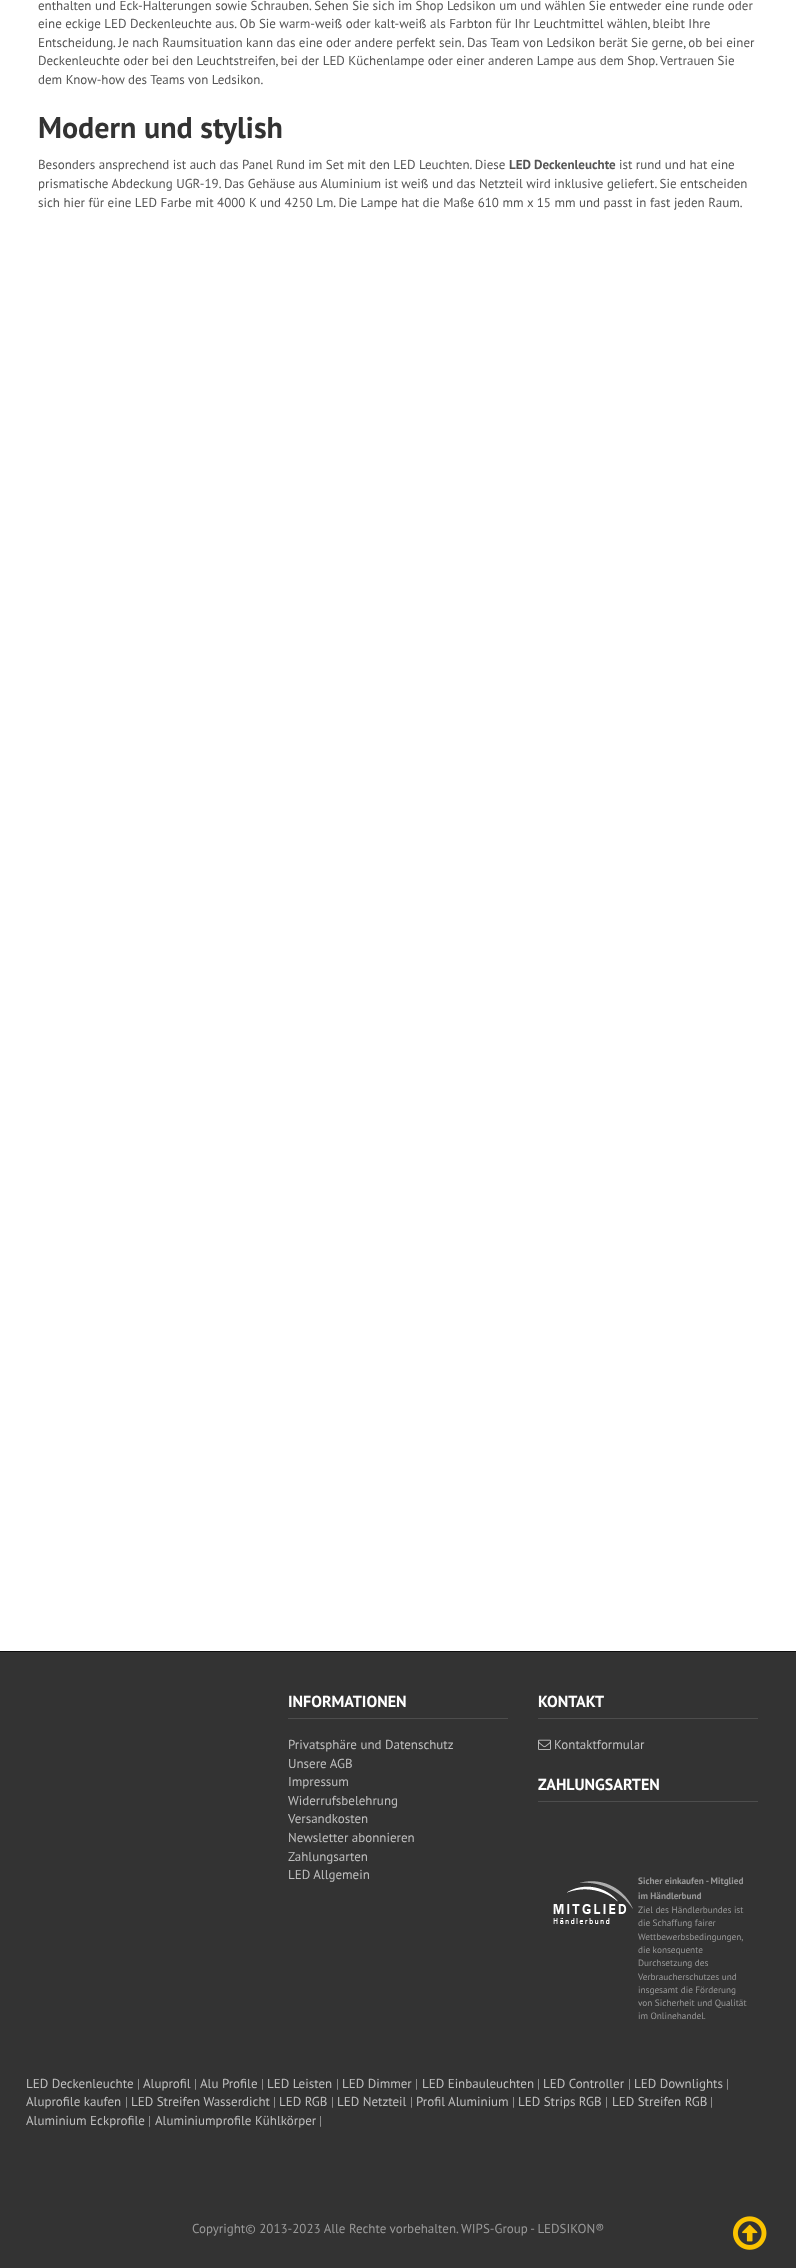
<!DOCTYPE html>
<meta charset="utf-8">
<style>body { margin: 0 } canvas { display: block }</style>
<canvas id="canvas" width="796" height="2268"></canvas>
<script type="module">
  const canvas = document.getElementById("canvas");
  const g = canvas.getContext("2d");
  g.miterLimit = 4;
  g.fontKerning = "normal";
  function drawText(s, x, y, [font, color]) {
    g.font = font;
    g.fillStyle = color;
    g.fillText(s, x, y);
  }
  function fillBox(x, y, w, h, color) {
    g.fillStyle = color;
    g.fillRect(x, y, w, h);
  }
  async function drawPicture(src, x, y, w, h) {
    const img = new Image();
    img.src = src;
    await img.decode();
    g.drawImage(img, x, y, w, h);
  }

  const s1 = ["13px PT Sans", "#555555"];
  const s2 = ["bold 30px PT Sans", "#333333"];
  const s3 = ["bold 13px PT Sans", "#555555"];
  const s4 = ["bold 16px PT Sans", "#FFFFFF"];
  const s5 = ["13px PT Sans", "#BFBFBF"];
  const s6 = ["bold 9.25px PT Sans", "#999999"];
  const s7 = ["9.25px PT Sans", "#999999"];
  const s8 = ["13px PT Sans", "#999999"];

  fillBox(0, 0, 796, 2268, "#FFFFFF");
  drawText("enthalten und Eck-Halterungen sowie Schrauben. Sehen Sie sich im Shop Ledsikon um und wählen Sie entweder eine runde oder", 38, 10, s1);
  drawText("eine eckige LED Deckenleuchte aus. Ob Sie warm-weiß oder kalt-weiß als Farbton für Ihr Leuchtmittel wählen, bleibt Ihre", 38, 28, s1);
  drawText("Entscheidung. Je nach Raumsituation kann das eine oder andere perfekt sein. Das Team von Ledsikon berät Sie gerne, ob bei einer", 38, 47, s1);
  drawText("Deckenleuchte oder bei den Leuchtstreifen, bei der LED Küchenlampe oder einer anderen Lampe aus dem Shop. Vertrauen Sie", 38, 65, s1);
  drawText("dem Know-how des Teams von Ledsikon.", 38, 84, s1);
  drawText("Modern und stylish", 38, 138, s2);
  drawText("Besonders ansprechend ist auch das Panel Rund im Set mit den LED Leuchten. Diese", 38, 169, s1);
  drawText("LED Deckenleuchte", 509, 169, s3);
  drawText("ist rund und hat eine", 619, 169, s1);
  drawText("prismatische Abdeckung UGR-19. Das Gehäuse aus Aluminium ist weiß und das Netzteil wird inklusive geliefert. Sie entscheiden", 38, 188, s1);
  drawText("sich hier für eine LED Farbe mit 4000 K und 4250 Lm. Die Lampe hat die Maße 610 mm x 15 mm und passt in fast jeden Raum.", 38, 207, s1);
  fillBox(0, 1652, 796, 616, "#333333");
  fillBox(0, 1651, 796, 1, "#0D0D0D");
  fillBox(288, 1718, 220, 1, "#4D4D4D");
  drawText("INFORMATIONEN", 288, 1707, s4);
  drawText("Privatsphäre und Datenschutz", 288, 1749, s5);
  drawText("Unsere AGB", 288, 1768, s5);
  drawText("Impressum", 288, 1786, s5);
  drawText("Widerrufsbelehrung", 288, 1805, s5);
  drawText("Versandkosten", 288, 1823, s5);
  drawText("Newsletter abonnieren", 288, 1842, s5);
  drawText("Zahlungsarten", 288, 1861, s5);
  drawText("LED Allgemein", 288, 1879, s5);
  fillBox(538, 1718, 220, 1, "#4D4D4D");
  drawText("KONTAKT", 538, 1707, s4);
  await drawPicture("pic1.png", 538, 1739, 13, 11);
  drawText("Kontaktformular", 554, 1749, s5);
  fillBox(538, 1801, 220, 1, "#4D4D4D");
  drawText("ZAHLUNGSARTEN", 538, 1790, s4);
  await drawPicture("pic2.png", 553, 1881, 80, 43);
  drawText("Sicher einkaufen - Mitglied", 638, 1884, s6);
  drawText("im Händlerbund", 638, 1899, s6);
  drawText("Ziel des Händlerbundes ist", 638, 1913, s7);
  drawText("die Schaffung fairer", 638, 1926, s7);
  drawText("Wettbewerbsbedingungen,", 638, 1940, s7);
  drawText("die konsequente", 638, 1953, s7);
  drawText("Durchsetzung des", 638, 1966, s7);
  drawText("Verbraucherschutzes und", 638, 1980, s7);
  drawText("insgesamt die Förderung", 638, 1993, s7);
  drawText("von Sicherheit und Qualität", 638, 2006, s7);
  drawText("im Onlinehandel.", 638, 2019, s7);
  drawText("LED Deckenleuchte", 26, 2088, s5);
  drawText("|", 137, 2088, s8);
  drawText("Aluprofil", 143, 2088, s5);
  drawText("|", 194, 2088, s8);
  drawText("Alu Profile", 200, 2088, s5);
  drawText("|", 261, 2088, s8);
  drawText("LED Leisten", 267, 2088, s5);
  drawText("|", 336, 2088, s8);
  drawText("LED Dimmer", 342, 2088, s5);
  drawText("|", 415, 2088, s8);
  drawText("LED Einbauleuchten", 422, 2088, s5);
  drawText("|", 537, 2088, s8);
  drawText("LED Controller", 543, 2088, s5);
  drawText("|", 628, 2088, s8);
  drawText("LED Downlights", 634, 2088, s5);
  drawText("|", 726, 2088, s8);
  drawText("Aluprofile kaufen", 26, 2106, s5);
  drawText("|", 125, 2106, s8);
  drawText("LED Streifen Wasserdicht", 131, 2106, s5);
  drawText("|", 273, 2106, s8);
  drawText("LED RGB", 279, 2106, s5);
  drawText("|", 331, 2106, s8);
  drawText("LED Netzteil", 337, 2106, s5);
  drawText("|", 410, 2106, s8);
  drawText("Profil Aluminium", 416, 2106, s5);
  drawText("|", 512, 2106, s8);
  drawText("LED Strips RGB", 518, 2106, s5);
  drawText("|", 605, 2106, s8);
  drawText("LED Streifen RGB", 612, 2106, s5);
  drawText("|", 710, 2106, s8);
  drawText("Aluminium Eckprofile", 26, 2125, s5);
  drawText("|", 148, 2125, s8);
  drawText("Aluminiumprofile Kühlkörper", 155, 2125, s5);
  drawText("|", 319, 2125, s8);
  drawText("Copyright© 2013-2023 Alle Rechte vorbehalten. WIPS-Group - LEDSIKON®", 192, 2233, s8);
  await drawPicture("pic3.png", 733, 2216, 34, 34);
</script>
